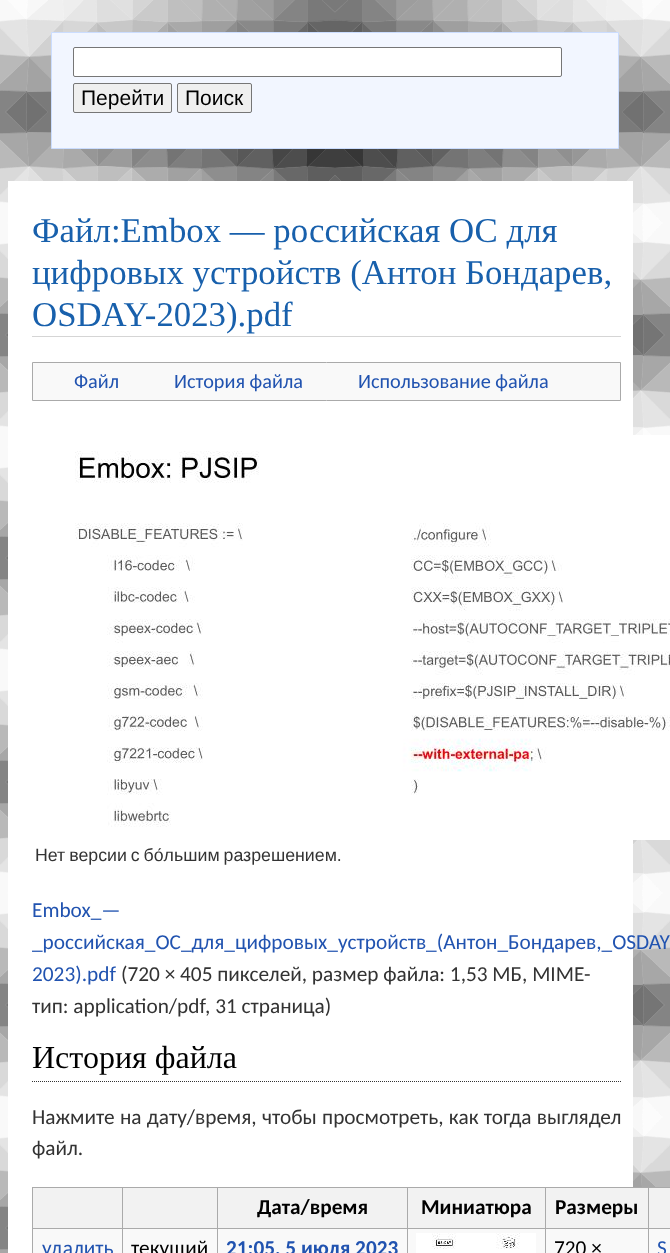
<!DOCTYPE html>
<meta charset="utf-8">
<style>body { margin: 0 } canvas { display: block }</style>
<canvas id="canvas" width="670" height="1253"></canvas>
<script type="module">
  const canvas = document.getElementById("canvas");
  const g = canvas.getContext("2d");
  g.miterLimit = 4;
  g.fontKerning = "normal";
  function drawText(s, x, y, [font, color]) {
    g.font = font;
    g.fillStyle = color;
    g.fillText(s, x, y);
  }
  function fillBox(x, y, w, h, color) {
    g.fillStyle = color;
    g.fillRect(x, y, w, h);
  }
  async function drawPicture(src, x, y, w, h) {
    const img = new Image();
    img.src = src;
    await img.decode();
    g.drawImage(img, x, y, w, h);
  }

  const s1 = ["21px Liberation Sans", "#000000"];
  const s2 = ["34.8px Liberation Serif", "#1860AC"];
  const s3 = ["20.25px Carlito", "#2153B0"];
  const s4 = ["17.75px Liberation Sans", "#333333"];
  const s5 = ["21.3px Carlito", "#2153B0"];
  const s6 = ["21.3px Carlito", "#333333"];
  const s7 = ["32px Liberation Serif", "#000000"];
  const s8 = ["bold 21.3px Carlito", "#000000"];
  const s9 = ["21.3px Carlito", "#000000"];
  const s10 = ["bold 21.3px Carlito", "#2153B0"];

  fillBox(0, 0, 670, 1253, "#FFFFFF");
  await drawPicture("pic1.png", 0, 0, 670, 1253);
  g.fillStyle = "#F2F6FF";
  g.beginPath();
  g.rect(51.5, 32.5, 567, 116);
  g.fill();
  g.strokeStyle = "#CBDDFF";
  g.stroke();
  g.fillStyle = "#FFFFFF";
  g.beginPath();
  g.roundRect(73.5, 47.5, 488, 29, 1.5);
  g.fill();
  g.strokeStyle = "#767676";
  g.stroke();
  g.fillStyle = "#EFEFEF";
  g.beginPath();
  g.roundRect(73.5, 83.5, 98, 29, 1.5);
  g.fill();
  g.stroke();
  drawText("Перейти", 81, 105, s1);
  g.fillStyle = "#EFEFEF";
  g.beginPath();
  g.roundRect(177.5, 83.5, 74, 29, 1.5);
  g.fill();
  g.stroke();
  drawText("Поиск", 185, 105, s1);
  fillBox(8, 181, 625, 1072, "#FFFFFF");
  fillBox(32, 336, 589, 1, "#D5D5D5");
  drawText("Файл:Embox — российская ОС для", 32, 242, s2);
  drawText("цифровых устройств (Антон Бондарев,", 32, 284, s2);
  drawText("OSDAY-2023).pdf", 32, 326, s2);
  g.fillStyle = "#F9F9F9";
  g.beginPath();
  g.rect(32.5, 362.5, 588, 38);
  g.fill();
  g.strokeStyle = "#AAAAAA";
  g.stroke();
  drawText("Файл", 74, 388, s3);
  drawText("История файла", 174, 388, s3);
  drawText("Использование файла", 358, 388, s3);
  await drawPicture("pic2.png", 75, 435, 595, 405);
  g.wordSpacing = "-1px";
  drawText("Нет версии с бо́льшим разрешением.", 35, 861, s4);
  g.wordSpacing = "0px";
  drawText("Embox_—", 32, 917, s5);
  drawText("_российская_ОС_для_цифровых_устройств_(Антон_Бондарев,_OSDAY", 32, 949, s5);
  drawText("2023).pdf", 32, 981, s5);
  drawText("(720 × 405 пикселей, размер файла: 1,53 МБ, MIME-", 121, 981, s6);
  drawText("тип: application/pdf", 32, 1013, s6);
  drawText(", 31 страница)", 205, 1013, s6);
  g.beginPath();
  g.moveTo(32, 1081.5);
  g.lineTo(621, 1081.5);
  g.strokeStyle = "#333333";
  g.setLineDash([1, 1]);
  g.stroke();
  drawText("История файла", 32, 1068, s7);
  g.wordSpacing = "0.5px";
  drawText("Нажмите на дату/время, чтобы просмотреть, как тогда выглядел", 32, 1124, s6);
  g.wordSpacing = "0px";
  drawText("файл.", 32, 1155, s6);
  fillBox(33, 1229, 637, 24, "#F9F9F9");
  fillBox(32, 1187, 638, 1, "#AAAAAA");
  fillBox(32, 1187, 1, 66, "#AAAAAA");
  fillBox(33, 1188, 89, 40, "#F2F2F2");
  fillBox(123, 1188, 94, 40, "#F2F2F2");
  fillBox(648, 1228, 22, 1, "#AAAAAA");
  fillBox(648, 1228, 1, 25, "#AAAAAA");
  fillBox(545, 1228, 104, 1, "#AAAAAA");
  fillBox(545, 1228, 1, 25, "#AAAAAA");
  fillBox(407, 1228, 139, 1, "#AAAAAA");
  fillBox(407, 1228, 1, 25, "#AAAAAA");
  fillBox(217, 1228, 191, 1, "#AAAAAA");
  fillBox(217, 1228, 1, 25, "#AAAAAA");
  fillBox(122, 1228, 96, 1, "#AAAAAA");
  fillBox(122, 1228, 1, 25, "#AAAAAA");
  fillBox(32, 1228, 91, 1, "#AAAAAA");
  fillBox(122, 1187, 1, 42, "#AAAAAA");
  fillBox(218, 1188, 189, 40, "#F2F2F2");
  fillBox(217, 1187, 1, 42, "#AAAAAA");
  drawText("Дата/время", 257, 1214, s8);
  fillBox(408, 1188, 137, 40, "#F2F2F2");
  fillBox(407, 1187, 1, 42, "#AAAAAA");
  drawText("Миниатюра", 421, 1214, s8);
  fillBox(546, 1188, 102, 40, "#F2F2F2");
  fillBox(545, 1187, 1, 42, "#AAAAAA");
  drawText("Размеры", 555, 1214, s8);
  fillBox(649, 1188, 21, 40, "#F2F2F2");
  fillBox(648, 1187, 1, 42, "#AAAAAA");
  drawText("удалить", 42, 1255, s5);
  drawText("текущий", 131, 1255, s9);
  drawText("21:05, 5 июля 2023", 226, 1255, s10);
  fillBox(416, 1233, 120, 20, "#FFFFFF");
  await drawPicture("pic3.png", 432, 1233, 88, 16);
  drawText("720 ×", 554, 1255, s9);
  drawText("S", 657, 1255, s5);
</script>
